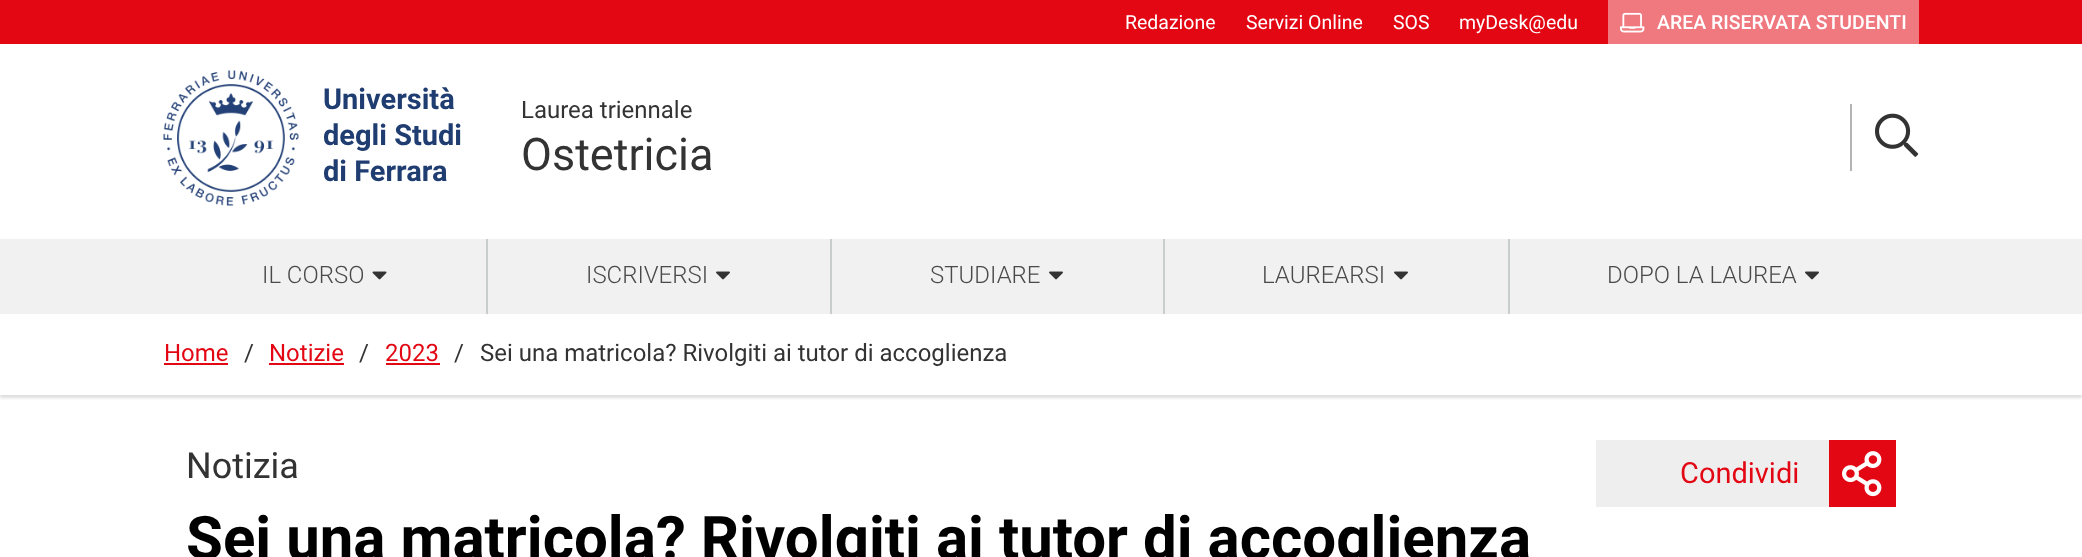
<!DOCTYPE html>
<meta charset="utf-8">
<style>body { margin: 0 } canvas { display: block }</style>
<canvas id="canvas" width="2082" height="557"></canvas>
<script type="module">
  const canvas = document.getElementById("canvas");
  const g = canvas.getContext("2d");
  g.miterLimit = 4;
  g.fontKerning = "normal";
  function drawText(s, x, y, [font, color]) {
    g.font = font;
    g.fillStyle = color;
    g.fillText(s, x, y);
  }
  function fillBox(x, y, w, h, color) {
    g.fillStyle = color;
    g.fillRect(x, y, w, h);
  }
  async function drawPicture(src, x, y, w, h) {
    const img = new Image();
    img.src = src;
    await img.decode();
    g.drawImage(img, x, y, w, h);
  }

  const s1 = ["19.5px Roboto", "#FFFFFF"];
  const s2 = ["500 19.5px Roboto", "#FFFFFF"];
  const s3 = ["bold 29px Roboto", "#203D71"];
  const s4 = ["24px Roboto", "#333333"];
  const s5 = ["45px Roboto", "#333333"];
  const s6 = ["300 24px Roboto", "#4A4A4A"];
  const s7 = ["24px Roboto", "#E30613"];
  const s8 = ["36px Roboto", "#333333"];
  const s9 = ["29px Roboto", "#E30613"];
  const s10 = ["bold 60px Roboto", "#000000"];

  fillBox(0, 0, 2082, 557, "#FFFFFF");
  fillBox(0, 0, 2082, 44, "#E30613");
  drawText("Redazione", 1125, 29, s1);
  drawText("Servizi Online", 1246, 29, s1);
  drawText("SOS", 1393, 29, s1);
  drawText("myDesk@edu", 1459, 29, s1);
  fillBox(1608, 0, 311, 44, "#F07980");
  await drawPicture("pic1.png", 1620, 12, 25, 21);
  drawText("AREA RISERVATA STUDENTI", 1657, 29, s2);
  await drawPicture("pic2.png", 163, 70, 136, 136);
  drawText("Università", 323, 109, s3);
  drawText("degli Studi", 323, 145, s3);
  drawText("di Ferrara", 323, 181, s3);
  drawText("Laurea triennale", 521, 118, s4);
  drawText("Ostetricia", 521, 170, s5);
  fillBox(1850, 104, 2, 67, "#B3B3B3");
  await drawPicture("pic3.png", 1875, 113, 44, 44);
  g.fillStyle = "rgba(0, 0, 0, 0.13)";
  g.filter = "blur(1.5px)";
  g.beginPath();
  g.rect(0, 317, 2082, 81);
  g.fill();
  g.filter = "none";
  fillBox(0, 239, 2082, 75, "#F1F1F1");
  fillBox(486, 239, 2, 75, "#C8CECD");
  drawText("IL CORSO", 262, 283, s6);
  await drawPicture("pic4.png", 372, 271, 15, 9);
  fillBox(830, 239, 2, 75, "#C8CECD");
  drawText("ISCRIVERSI", 586, 283, s6);
  await drawPicture("pic5.png", 716, 271, 14, 9);
  fillBox(1163, 239, 2, 75, "#C8CECD");
  drawText("STUDIARE", 930, 283, s6);
  await drawPicture("pic5.png", 1049, 271, 14, 9);
  fillBox(1508, 239, 2, 75, "#C8CECD");
  drawText("LAUREARSI", 1262, 283, s6);
  await drawPicture("pic5.png", 1394, 271, 14, 9);
  drawText("DOPO LA LAUREA", 1607, 283, s6);
  await drawPicture("pic5.png", 1805, 271, 14, 9);
  fillBox(0, 315, 2082, 80, "#FFFFFF");
  drawText("Home", 164, 361, s7);
  fillBox(164, 363, 64, 2, "#E30613");
  drawText("/", 244, 361, s4);
  drawText("Notizie", 269, 361, s7);
  fillBox(269, 363, 75, 2, "#E30613");
  drawText("/", 359, 361, s4);
  drawText("2023", 385, 361, s7);
  fillBox(386, 363, 54, 2, "#E30613");
  drawText("/", 454, 361, s4);
  drawText("Sei una matricola? Rivolgiti ai tutor di accoglienza", 480, 361, s4);
  drawText("Notizia", 186, 478, s8);
  fillBox(1596, 440, 233, 67, "#EEEEEE");
  drawText("Condividi", 1680, 483, s9);
  fillBox(1829, 440, 67, 67, "#E30613");
  await drawPicture("pic6.png", 1842, 451, 40, 46);
  drawText("Sei una matricola? Rivolgiti ai tutor di accoglienza", 186, 559, s10);
</script>
